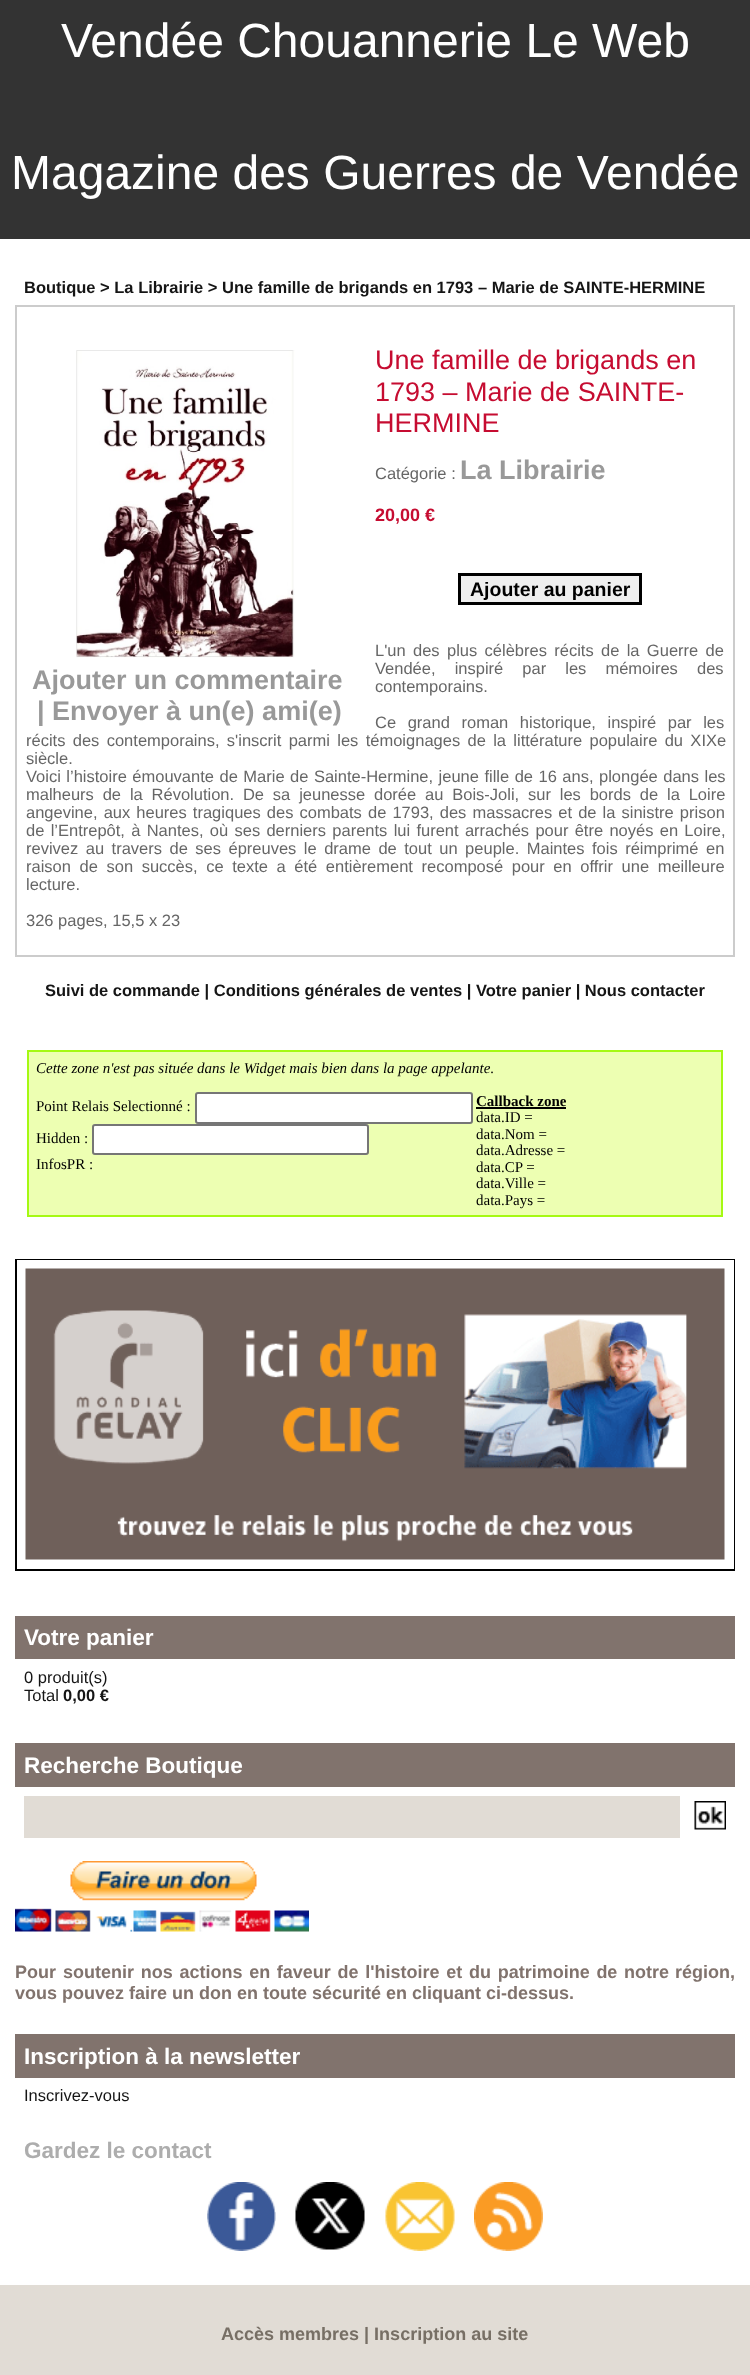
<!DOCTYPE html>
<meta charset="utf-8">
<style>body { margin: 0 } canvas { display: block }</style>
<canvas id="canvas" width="750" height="2375"></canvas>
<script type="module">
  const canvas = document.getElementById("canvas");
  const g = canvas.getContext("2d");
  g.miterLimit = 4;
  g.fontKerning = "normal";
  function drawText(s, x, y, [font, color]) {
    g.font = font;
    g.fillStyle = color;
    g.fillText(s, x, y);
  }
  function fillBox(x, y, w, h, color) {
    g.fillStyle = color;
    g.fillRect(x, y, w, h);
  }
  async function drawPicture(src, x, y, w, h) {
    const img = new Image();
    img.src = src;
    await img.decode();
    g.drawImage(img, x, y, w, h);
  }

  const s1 = ["48px Liberation Sans", "#FFFFFF"];
  const s2 = ["bold 16.5px Liberation Sans", "#151515"];
  const s3 = ["27px Liberation Sans", "#C60C31"];
  const s4 = ["16.5px Liberation Sans", "#666666"];
  const s5 = ["bold 27px Liberation Sans", "#999999"];
  const s6 = ["bold 18px Liberation Sans", "#C60C31"];
  const s7 = ["bold 19.5px Liberation Sans", "#000000"];
  const s8 = ["italic 15px Liberation Serif", "#000000"];
  const s9 = ["15px Liberation Serif", "#000000"];
  const s10 = ["bold 15px Liberation Serif", "#000000"];
  const s11 = ["bold 22.5px Liberation Sans", "#FFFFFF"];
  const s12 = ["16.5px Liberation Sans", "#151515"];
  const s13 = ["bold 18px Liberation Sans", "#81736D"];
  const s14 = ["bold 22.5px Liberation Sans", "#ADADAD"];
  const s15 = ["bold 18px Liberation Sans", "#776F65"];

  fillBox(0, 0, 750, 2375, "#FFFFFF");
  fillBox(0, 0, 750, 239, "#333333");
  drawText("Vendée Chouannerie Le Web", 61, 57, s1);
  drawText("Magazine des Guerres de Vendée", 11, 189, s1);
  drawText("Boutique > La Librairie > Une famille de brigands en 1793 – Marie de SAINTE-HERMINE", 24, 293, s2);
  g.strokeStyle = "#CCCCCC";
  g.lineWidth = 2;
  g.strokeRect(16, 306, 718, 650);
  drawText("Une famille de brigands en", 375, 369, s3);
  drawText("1793 – Marie de SAINTE-", 375, 401, s3);
  drawText("HERMINE", 375, 432, s3);
  drawText("Catégorie :", 375, 479, s4);
  drawText("La Librairie", 460, 479, s5);
  drawText("20,00 €", 375, 521, s6);
  g.fillStyle = "#EFEFEF";
  g.beginPath();
  g.rect(459.5, 574.5, 181, 29);
  g.fill();
  g.strokeStyle = "#000000";
  g.lineWidth = 3;
  g.stroke();
  drawText("Ajouter au panier", 470, 596, s7);
  g.wordSpacing = "2.75px";
  drawText("L'un des plus célèbres récits de la Guerre de", 375, 656, s4);
  g.wordSpacing = "14.5px";
  drawText("Vendée, inspiré par les mémoires des", 375, 674, s4);
  g.wordSpacing = "0px";
  drawText("contemporains.", 375, 692, s4);
  g.wordSpacing = "7px";
  drawText("Ce grand roman historique, inspiré par les", 375, 728, s4);
  g.wordSpacing = "2.75px";
  drawText("récits des contemporains, s'inscrit parmi les témoignages de la littérature populaire du XIXe", 26, 746, s4);
  g.wordSpacing = "0px";
  drawText("siècle.", 26, 764, s4);
  g.wordSpacing = "0.9px";
  drawText("Voici l’histoire émouvante de Marie de Sainte-Hermine, jeune fille de 16 ans, plongée dans les", 26, 782, s4);
  g.wordSpacing = "4.25px";
  drawText("malheurs de la Révolution. De sa jeunesse dorée au Bois-Joli, sur les bords de la Loire", 26, 800, s4);
  g.wordSpacing = "1.5px";
  drawText("angevine, aux heures tragiques des combats de 1793, des massacres et de la sinistre prison", 26, 818, s4);
  g.wordSpacing = "1.7px";
  drawText("de l’Entrepôt, à Nantes, où ses derniers parents lui furent arrachés pour être noyés en Loire,", 26, 836, s4);
  g.wordSpacing = "2.9px";
  drawText("revivez au travers de ses épreuves le drame de tout un peuple. Maintes fois réimprimé en", 26, 854, s4);
  g.wordSpacing = "4px";
  drawText("raison de son succès, ce texte a été entièrement recomposé pour en offrir une meilleure", 26, 872, s4);
  g.wordSpacing = "0px";
  drawText("lecture.", 26, 890, s4);
  drawText("326 pages, 15,5 x 23", 26, 926, s4);
  await drawPicture("pic1.png", 76, 350, 219, 308);
  drawText("Ajouter un commentaire", 32, 689, s5);
  drawText("| Envoyer à un(e) ami(e)", 37, 720, s5);
  drawText("Suivi de commande | Conditions générales de ventes | Votre panier | Nous contacter", 45, 996, s2);
  g.fillStyle = "#EDFFB2";
  g.beginPath();
  g.rect(28, 1051, 694, 165);
  g.fill();
  g.strokeStyle = "#A5F913";
  g.lineWidth = 2;
  g.stroke();
  drawText("Cette zone n'est pas située dans le Widget mais bien dans la page appelante.", 36, 1073, s8);
  drawText("Point Relais Selectionné :", 36, 1111, s9);
  g.fillStyle = "#FFFFFF";
  g.beginPath();
  g.roundRect(196, 1093, 276, 30, 2);
  g.fill();
  g.strokeStyle = "#767676";
  g.stroke();
  drawText("Hidden :", 36, 1143, s9);
  g.fillStyle = "#FFFFFF";
  g.beginPath();
  g.roundRect(93, 1125, 275, 29, 2);
  g.fill();
  g.stroke();
  drawText("InfosPR :", 36, 1169, s9);
  drawText("Callback zone", 476, 1106, s10);
  fillBox(476, 1107, 90, 2, "#000000");
  drawText("data.ID =", 476, 1122, s9);
  drawText("data.Nom =", 476, 1139, s9);
  drawText("data.Adresse =", 476, 1155, s9);
  drawText("data.CP =", 476, 1172, s9);
  drawText("data.Ville =", 476, 1188, s9);
  drawText("data.Pays =", 476, 1205, s9);
  g.strokeStyle = "#000000";
  g.strokeRect(16, 1260, 718, 310);
  fillBox(17, 1260, 717, 309, "#FFFFFF");
  await drawPicture("pic2.png", 25, 1268, 700, 292);
  fillBox(15, 1616, 720, 43, "#81736D");
  drawText("Votre panier", 24, 1645, s11);
  drawText("0 produit(s)", 24, 1683, s12);
  drawText("Total", 24, 1701, s12);
  drawText("0,00 €", 63, 1701, s2);
  fillBox(15, 1743, 720, 44, "#81736D");
  drawText("Recherche Boutique", 24, 1773, s11);
  fillBox(24, 1796, 656, 42, "#E1DCD5");
  await drawPicture("pic3.png", 694, 1801, 32, 29);
  await drawPicture("pic4.png", 15, 1861, 294, 71);
  drawText("Pour", 15, 1978, s13);
  g.wordSpacing = "1.7px";
  drawText("soutenir nos actions en faveur de l'histoire et du patrimoine de notre", 63, 1978, s13);
  g.wordSpacing = "0px";
  drawText("région,", 675, 1978, s13);
  drawText("vous pouvez faire un don en toute sécurité en cliquant ci-dessus.", 15, 1999, s13);
  fillBox(15, 2034, 720, 44, "#81736D");
  drawText("Inscription à la newsletter", 24, 2064, s11);
  drawText("Inscrivez-vous", 24, 2101, s12);
  drawText("Gardez le contact", 24, 2158, s14);
  await drawPicture("pic5.png", 207, 2182, 69, 69);
  await drawPicture("pic6.png", 295, 2182, 70, 68);
  await drawPicture("pic7.png", 385, 2182, 70, 69);
  await drawPicture("pic8.png", 474, 2182, 69, 69);
  fillBox(0, 2285, 750, 90, "#E1DCD5");
  drawText("Accès membres | Inscription au site", 221, 2340, s15);
</script>
